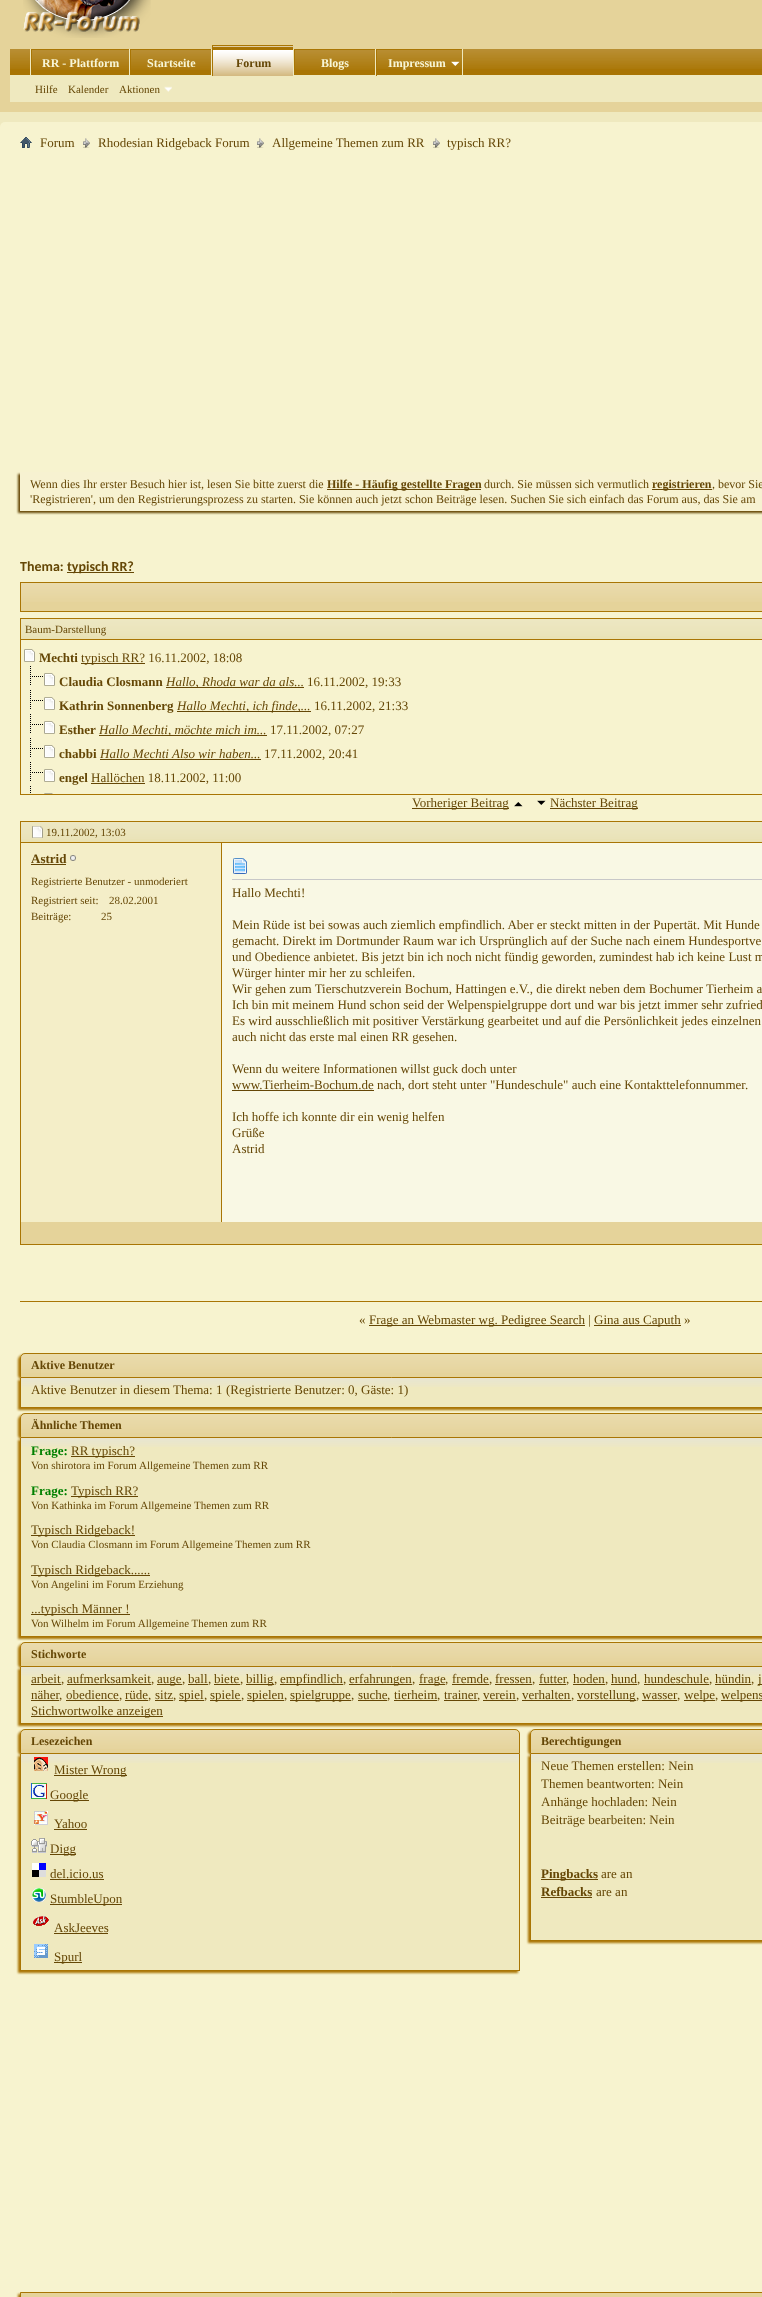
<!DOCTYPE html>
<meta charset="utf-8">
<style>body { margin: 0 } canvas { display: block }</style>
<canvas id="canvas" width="762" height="2297"></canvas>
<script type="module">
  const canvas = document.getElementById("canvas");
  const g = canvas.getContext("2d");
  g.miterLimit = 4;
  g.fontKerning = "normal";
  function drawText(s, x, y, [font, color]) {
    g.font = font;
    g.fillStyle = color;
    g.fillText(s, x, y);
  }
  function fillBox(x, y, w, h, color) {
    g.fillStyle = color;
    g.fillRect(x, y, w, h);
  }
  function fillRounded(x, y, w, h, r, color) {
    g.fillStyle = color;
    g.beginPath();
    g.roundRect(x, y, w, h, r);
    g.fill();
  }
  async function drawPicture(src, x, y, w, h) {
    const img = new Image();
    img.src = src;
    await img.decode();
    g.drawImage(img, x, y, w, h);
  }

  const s1 = ["bold 12px Liberation Serif", "#F8F6D7"];
  const s2 = ["bold 12px Liberation Serif", "#654706"];
  const s3 = ["11px Liberation Serif", "#654706"];
  const s4 = ["13px Liberation Serif", "#654706"];
  const s5 = ["12px Liberation Serif", "#654706"];
  const s6 = ["bold 14px Carlito", "#654706"];
  const s7 = ["bold 13px Liberation Serif", "#654706"];
  const s8 = ["italic 13px Liberation Serif", "#654706"];
  const s9 = ["bold 13px Liberation Serif", "#008000"];

  fillBox(0, 0, 762, 2297, "#EFE9BF");
  g.fillStyle = "#E5D39A";
  g.beginPath();
  g.moveTo(0, -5);
  g.lineTo(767, -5);
  g.lineTo(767, 107);
  g.bezierCurveTo(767, 110, 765, 112, 762, 112);
  g.lineTo(5, 112);
  g.bezierCurveTo(2, 112, 0, 110, 0, 107);
  g.closePath();
  g.fill();
  await drawPicture("pic1.png", 23, 0, 128, 38);
  g.fillStyle = "#EFE9BF";
  g.beginPath();
  g.moveTo(5, 44);
  g.lineTo(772, 44);
  g.lineTo(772, 107);
  g.lineTo(5, 107);
  g.closePath();
  g.fill();
  g.strokeStyle = "#E5D39A";
  g.lineWidth = 10;
  g.stroke();
  fillBox(10, 49, 752, 26, "#A97504");
  await drawPicture("pic2.png", 10, 49, 752, 20);
  fillBox(129, 49, 1, 27, "#EFE9BF");
  fillBox(30, 49, 1, 27, "#EFE9BF");
  fillBox(32, 49, 97, 20, "#A97504");
  await drawPicture("pic3.png", 32, 50, 97, 20);
  fillBox(31, 49, 1, 27, "#A97504");
  drawText("RR - Plattform", 42, 67, s1);
  fillBox(211, 49, 1, 27, "#EFE9BF");
  fillBox(131, 49, 80, 20, "#A97504");
  await drawPicture("pic4.png", 131, 50, 80, 20);
  fillBox(130, 49, 1, 27, "#A97504");
  drawText("Startseite", 147, 67, s1);
  fillBox(293, 49, 1, 26, "#EFE9BF");
  fillBox(294, 49, 1, 27, "#A97504");
  fillBox(31, 75, 264, 1, "#EFE9BF");
  fillBox(212, 45, 81, 31, "#A97504");
  await drawPicture("pic5.png", 213, 46, 80, 30);
  drawText("Forum", 236, 67, s2);
  fillBox(375, 49, 1, 27, "#EFE9BF");
  fillBox(295, 49, 80, 20, "#A97504");
  await drawPicture("pic4.png", 295, 50, 80, 20);
  drawText("Blogs", 321, 67, s1);
  fillBox(462, 49, 1, 27, "#EFE9BF");
  await drawPicture("pic6.png", 451, 61, 9, 5);
  fillBox(376, 49, 86, 1, "#A97504");
  fillBox(376, 49, 1, 27, "#A97504");
  drawText("Impressum", 388, 67, s1);
  drawText("Hilfe", 35, 93, s3);
  drawText("Kalender", 68, 93, s3);
  drawText("Aktionen", 119, 93, s3);
  await drawPicture("pic7.png", 164, 86, 8, 6);
  fillRounded(0, 122, 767, 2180, 5, "#F7F3CF");
  await drawPicture("pic8.png", 20, 137, 12, 11);
  await drawPicture("pic9.png", 83, 138, 7, 10);
  drawText("Forum", 40, 147, s4);
  await drawPicture("pic9.png", 257, 138, 7, 10);
  drawText("Rhodesian Ridgeback Forum", 98, 147, s4);
  await drawPicture("pic9.png", 433, 138, 7, 10);
  drawText("Allgemeine Themen zum RR", 272, 147, s4);
  drawText("typisch RR?", 447, 147, s4);
  g.filter = "blur(1px)";
  g.beginPath();
  g.rect(18, 474, 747, 39);
  g.fill();
  g.filter = "none";
  fillBox(20, 472, 742, 39, "#F7F2D1");
  drawText("Wenn dies Ihr erster Besuch hier ist, lesen Sie bitte zuerst die", 30, 488, s5);
  fillBox(327, 489, 154, 1, "#654706");
  drawText("Hilfe - Häufig gestellte Fragen", 327, 488, s2);
  drawText("durch. Sie müssen sich vermutlich", 484, 488, s5);
  fillBox(652, 489, 60, 1, "#654706");
  drawText("registrieren", 652, 488, s2);
  drawText(", bevor Sie", 712, 488, s5);
  drawText("'Registrieren', um den Registrierungsprozess zu starten. Sie können auch jetzt schon Beiträge lesen. Suchen Sie sich einfach das Forum aus, das Sie am", 30, 503, s5);
  drawText("Thema:", 20, 571, s6);
  fillBox(67, 572, 67, 1, "#654706");
  drawText("typisch RR?", 67, 571, s6);
  fillBox(21, 583, 741, 28, "#E5D39A");
  await drawPicture("pic10.png", 21, 583, 741, 19);
  g.strokeStyle = "#A97504";
  g.lineWidth = 1;
  g.strokeRect(20.5, 582.5, 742, 29);
  fillBox(21, 619, 741, 20, "#E9E2B5");
  await drawPicture("pic11.png", 21, 619, 741, 17);
  g.strokeRect(20.5, 618.5, 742, 21);
  drawText("Baum-Darstellung", 25, 633, s3);
  fillBox(20, 794, 742, 1, "#A97504");
  fillBox(20, 640, 1, 155, "#A97504");
  await drawPicture("pic12.png", 24, 649, 11, 13);
  drawText("Mechti", 39, 662, s7);
  fillBox(81, 663, 64, 1, "#654706");
  drawText("typisch RR? 16.11.2002, 18:08", 81, 662, s4);
  await drawPicture("pic13.png", 30, 666, 13, 19);
  await drawPicture("pic12.png", 44, 673, 11, 13);
  drawText("Claudia Closmann", 59, 686, s7);
  fillBox(166, 687, 138, 1, "#654706");
  drawText("Hallo, Rhoda war da als...", 166, 686, s8);
  drawText("16.11.2002, 19:33", 307, 686, s4);
  await drawPicture("pic13.png", 30, 690, 13, 19);
  await drawPicture("pic12.png", 44, 697, 11, 13);
  drawText("Kathrin Sonnenberg", 59, 710, s7);
  fillBox(177, 711, 134, 1, "#654706");
  drawText("Hallo Mechti, ich finde,...", 177, 710, s8);
  drawText("16.11.2002, 21:33", 314, 710, s4);
  await drawPicture("pic13.png", 30, 714, 13, 19);
  await drawPicture("pic12.png", 44, 721, 11, 13);
  drawText("Esther", 59, 734, s7);
  fillBox(99, 735, 168, 1, "#654706");
  drawText("Hallo Mechti, möchte mich im...", 99, 734, s8);
  drawText("17.11.2002, 07:27", 270, 734, s4);
  await drawPicture("pic13.png", 30, 738, 13, 19);
  await drawPicture("pic12.png", 44, 745, 11, 13);
  drawText("chabbi", 59, 758, s7);
  drawText("Hallo Mechti Also wir haben...", 100, 758, s8);
  fillBox(100, 759, 161, 1, "#654706");
  drawText("17.11.2002, 20:41", 264, 758, s4);
  await drawPicture("pic13.png", 30, 762, 13, 19);
  await drawPicture("pic12.png", 44, 769, 11, 13);
  drawText("engel", 59, 782, s7);
  fillBox(91, 783, 54, 1, "#654706");
  drawText("Hallöchen 18.11.2002, 11:00", 91, 782, s4);
  await drawPicture("pic14.png", 30, 786, 1, 7);
  await drawPicture("pic15.png", 44, 793, 9, 1);
  fillBox(412, 808, 97, 1, "#654706");
  drawText("Vorheriger Beitrag", 412, 807, s4);
  await drawPicture("pic16.png", 514, 802, 9, 5);
  await drawPicture("pic17.png", 537, 800, 9, 5);
  fillBox(550, 808, 88, 1, "#654706");
  drawText("Nächster Beitrag", 550, 807, s4);
  g.strokeRect(20.5, 821.5, 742, 423);
  fillBox(21, 822, 741, 20, "#E9E2B5");
  await drawPicture("pic11.png", 21, 822, 741, 17);
  g.strokeRect(20.5, 821.5, 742, 21);
  await drawPicture("pic18.png", 32, 826, 11, 12);
  drawText("19.11.2002, 13:03", 46, 836, s3);
  fillBox(21, 843, 200, 379, "#F4EEC8");
  drawText("Astrid", 31, 863, s7);
  fillBox(31, 864, 35, 1, "#654706");
  await drawPicture("pic19.png", 70, 855, 6, 6);
  drawText("Registrierte Benutzer - unmoderiert", 31, 885, s3);
  drawText("Registriert seit:", 31, 904, s3);
  drawText("28.02.2001", 109, 904, s3);
  drawText("Beiträge:", 31, 920, s3);
  drawText("25", 101, 920, s3);
  fillBox(222, 843, 540, 379, "#F9F8E4");
  fillBox(221, 843, 1, 379, "#A97504");
  fillBox(232, 879, 530, 1, "#C8C8C8");
  await drawPicture("pic20.png", 233, 858, 14, 16);
  drawText("Hallo Mechti!", 232, 897, s4);
  drawText("Mein Rüde ist bei sowas auch ziemlich empfindlich. Aber er steckt mitten in der Pupertät. Mit Hunde", 232, 929, s4);
  drawText("gemacht. Direkt im Dortmunder Raum war ich Ursprünglich auf der Suche nach einem Hundesportve", 232, 945, s4);
  drawText("und Obedience anbietet. Bis jetzt bin ich noch nicht fündig geworden, zumindest hab ich keine Lust m", 232, 961, s4);
  drawText("Würger hinter mir her zu schleifen.", 232, 977, s4);
  drawText("Wir gehen zum Tierschutzverein Bochum, Hattingen e.V., die direkt neben dem Bochumer Tierheim a", 232, 993, s4);
  drawText("Ich bin mit meinem Hund schon seid der Welpenspielgruppe dort und war bis jetzt immer sehr zufried", 232, 1009, s4);
  drawText("Es wird ausschließlich mit positiver Verstärkung gearbeitet und auf die Persönlichkeit jedes einzelnen", 232, 1025, s4);
  drawText("auch nicht das erste mal einen RR gesehen.", 232, 1041, s4);
  drawText("Wenn du weitere Informationen willst guck doch unter", 232, 1073, s4);
  fillBox(232, 1090, 142, 1, "#654706");
  drawText("www.Tierheim-Bochum.de nach, dort steht unter \"Hundeschule\" auch eine Kontakttelefonnummer.", 232, 1089, s4);
  drawText("Ich hoffe ich konnte dir ein wenig helfen", 232, 1121, s4);
  drawText("Grüße", 232, 1137, s4);
  drawText("Astrid", 232, 1153, s4);
  fillBox(21, 1222, 741, 22, "#E5D39A");
  fillBox(20, 1301, 742, 1, "#A97504");
  drawText("«", 359, 1324, s4);
  fillBox(369, 1325, 216, 1, "#654706");
  drawText("Frage an Webmaster wg. Pedigree Search |", 369, 1324, s4);
  fillBox(594, 1325, 87, 1, "#654706");
  drawText("Gina aus Caputh »", 594, 1324, s4);
  g.fillStyle = "#A97504";
  g.filter = "blur(1px)";
  g.beginPath();
  g.roundRect(18, 1355, 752, 25, 5);
  g.fill();
  g.filter = "none";
  g.fillStyle = "#E5D39A";
  g.beginPath();
  g.moveTo(25, 1353);
  g.lineTo(762, 1353);
  g.bezierCurveTo(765, 1353, 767, 1355, 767, 1358);
  g.lineTo(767, 1378);
  g.lineTo(20, 1378);
  g.lineTo(20, 1358);
  g.bezierCurveTo(20, 1355, 22, 1353, 25, 1353);
  g.closePath();
  g.fill();
  await drawPicture("pic21.png", 20, 1354, 742, 19);
  g.beginPath();
  g.moveTo(25, 1353.5);
  g.lineTo(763, 1353.5);
  g.bezierCurveTo(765.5, 1353.5, 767.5, 1355.5, 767.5, 1358);
  g.lineTo(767.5, 1377.5);
  g.lineTo(20.5, 1377.5);
  g.lineTo(20.5, 1358);
  g.bezierCurveTo(20.5, 1355.5, 22.5, 1353.5, 25, 1353.5);
  g.closePath();
  g.stroke();
  drawText("Aktive Benutzer", 31, 1369, s2);
  g.fillStyle = "#A97504";
  g.filter = "blur(1px)";
  g.beginPath();
  g.rect(18, 1380, 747, 30);
  g.fill();
  g.filter = "none";
  fillBox(21, 1378, 741, 29, "#EFE9BF");
  await drawPicture("pic22.png", 21, 1378, 741, 9);
  fillBox(20, 1378, 1, 4, "#A97504");
  drawText("Aktive Benutzer in diesem Thema: 1", 31, 1394, s4);
  drawText("(Registrierte Benutzer: 0, Gäste: 1)", 226, 1394, s4);
  g.fillStyle = "#A97504";
  g.filter = "blur(1px)";
  g.beginPath();
  g.roundRect(18, 1415, 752, 25, 5);
  g.fill();
  g.filter = "none";
  g.fillStyle = "#E5D39A";
  g.beginPath();
  g.moveTo(25, 1413);
  g.lineTo(762, 1413);
  g.bezierCurveTo(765, 1413, 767, 1415, 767, 1418);
  g.lineTo(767, 1438);
  g.lineTo(20, 1438);
  g.lineTo(20, 1418);
  g.bezierCurveTo(20, 1415, 22, 1413, 25, 1413);
  g.closePath();
  g.fill();
  await drawPicture("pic21.png", 20, 1414, 742, 19);
  g.beginPath();
  g.moveTo(25, 1413.5);
  g.lineTo(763, 1413.5);
  g.bezierCurveTo(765.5, 1413.5, 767.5, 1415.5, 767.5, 1418);
  g.lineTo(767.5, 1437.5);
  g.lineTo(20.5, 1437.5);
  g.lineTo(20.5, 1418);
  g.bezierCurveTo(20.5, 1415.5, 22.5, 1413.5, 25, 1413.5);
  g.closePath();
  g.stroke();
  drawText("Ähnliche Themen", 31, 1429, s2);
  g.fillStyle = "#A97504";
  g.filter = "blur(1px)";
  g.beginPath();
  g.rect(18, 1440, 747, 199);
  g.fill();
  g.filter = "none";
  fillBox(21, 1438, 741, 198, "#EFE9BF");
  await drawPicture("pic22.png", 21, 1438, 741, 9);
  fillBox(20, 1438, 1, 4, "#A97504");
  drawText("Frage:", 31, 1455, s9);
  fillBox(71, 1456, 64, 1, "#654706");
  drawText("RR typisch?", 71, 1455, s4);
  drawText("Von shirotora im Forum Allgemeine Themen zum RR", 31, 1469, s3);
  drawText("Frage:", 31, 1495, s9);
  fillBox(71, 1496, 67, 1, "#654706");
  drawText("Typisch RR?", 71, 1495, s4);
  drawText("Von Kathinka im Forum Allgemeine Themen zum RR", 31, 1509, s3);
  fillBox(31, 1535, 104, 1, "#654706");
  drawText("Typisch Ridgeback!", 31, 1534, s4);
  drawText("Von Claudia Closmann im Forum Allgemeine Themen zum RR", 31, 1548, s3);
  fillBox(31, 1575, 119, 1, "#654706");
  drawText("Typisch Ridgeback......", 31, 1574, s4);
  drawText("Von Angelini im Forum Erziehung", 31, 1588, s3);
  fillBox(31, 1614, 99, 1, "#654706");
  drawText("...typisch Männer !", 31, 1613, s4);
  drawText("Von Wilhelm im Forum Allgemeine Themen zum RR", 31, 1627, s3);
  g.fillStyle = "#A97504";
  g.filter = "blur(1px)";
  g.beginPath();
  g.roundRect(18, 1644, 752, 25, 5);
  g.fill();
  g.filter = "none";
  g.fillStyle = "#E5D39A";
  g.beginPath();
  g.moveTo(25, 1642);
  g.lineTo(762, 1642);
  g.bezierCurveTo(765, 1642, 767, 1644, 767, 1647);
  g.lineTo(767, 1667);
  g.lineTo(20, 1667);
  g.lineTo(20, 1647);
  g.bezierCurveTo(20, 1644, 22, 1642, 25, 1642);
  g.closePath();
  g.fill();
  await drawPicture("pic21.png", 20, 1643, 742, 19);
  g.beginPath();
  g.moveTo(25, 1642.5);
  g.lineTo(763, 1642.5);
  g.bezierCurveTo(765.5, 1642.5, 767.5, 1644.5, 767.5, 1647);
  g.lineTo(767.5, 1666.5);
  g.lineTo(20.5, 1666.5);
  g.lineTo(20.5, 1647);
  g.bezierCurveTo(20.5, 1644.5, 22.5, 1642.5, 25, 1642.5);
  g.closePath();
  g.stroke();
  drawText("Stichworte", 31, 1658, s2);
  g.fillStyle = "#A97504";
  g.filter = "blur(1px)";
  g.beginPath();
  g.rect(18, 1669, 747, 57);
  g.fill();
  g.filter = "none";
  fillBox(21, 1667, 741, 56, "#EFE9BF");
  await drawPicture("pic22.png", 21, 1667, 741, 9);
  fillBox(20, 1667, 1, 4, "#A97504");
  drawText("arbeit", 31, 1683, s4);
  fillBox(31, 1684, 30, 1, "#654706");
  drawText(",", 61, 1683, s4);
  drawText("aufmerksamkeit", 67, 1683, s4);
  fillBox(67, 1684, 84, 1, "#654706");
  drawText(",", 151, 1683, s4);
  fillBox(157, 1684, 25, 1, "#654706");
  drawText("auge", 157, 1683, s4);
  drawText(",", 182, 1683, s4);
  drawText("ball", 188, 1683, s4);
  fillBox(188, 1684, 20, 1, "#654706");
  drawText(",", 208, 1683, s4);
  drawText("biete", 214, 1683, s4);
  fillBox(214, 1684, 26, 1, "#654706");
  drawText(",", 240, 1683, s4);
  fillBox(246, 1684, 28, 1, "#654706");
  drawText("billig", 246, 1683, s4);
  drawText(",", 274, 1683, s4);
  fillBox(280, 1684, 63, 1, "#654706");
  drawText("empfindlich", 280, 1683, s4);
  drawText(",", 343, 1683, s4);
  fillBox(349, 1684, 63, 1, "#654706");
  drawText("erfahrungen", 349, 1683, s4);
  drawText(",", 412, 1683, s4);
  fillBox(419, 1684, 26, 1, "#654706");
  drawText("frage", 419, 1683, s4);
  drawText(",", 445, 1683, s4);
  drawText("fremde", 452, 1683, s4);
  fillBox(452, 1684, 37, 1, "#654706");
  drawText(",", 489, 1683, s4);
  drawText("fressen", 495, 1683, s4);
  fillBox(495, 1684, 37, 1, "#654706");
  drawText(",", 532, 1683, s4);
  drawText("futter", 539, 1683, s4);
  fillBox(539, 1684, 27, 1, "#654706");
  drawText(",", 566, 1683, s4);
  drawText("hoden", 573, 1683, s4);
  fillBox(573, 1684, 32, 1, "#654706");
  drawText(",", 605, 1683, s4);
  drawText("hund", 611, 1683, s4);
  fillBox(611, 1684, 26, 1, "#654706");
  drawText(",", 637, 1683, s4);
  drawText("hundeschule", 644, 1683, s4);
  fillBox(644, 1684, 65, 1, "#654706");
  drawText(",", 709, 1683, s4);
  drawText("hündin", 715, 1683, s4);
  fillBox(715, 1684, 36, 1, "#654706");
  drawText(",", 751, 1683, s4);
  fillBox(758, 1684, 4, 1, "#654706");
  drawText("j", 758, 1683, s4);
  drawText("näher", 31, 1699, s4);
  fillBox(31, 1700, 28, 1, "#654706");
  drawText(",", 59, 1699, s4);
  drawText("obedience", 66, 1699, s4);
  fillBox(66, 1700, 53, 1, "#654706");
  drawText(",", 119, 1699, s4);
  drawText("rüde", 125, 1699, s4);
  fillBox(125, 1700, 23, 1, "#654706");
  drawText(",", 148, 1699, s4);
  drawText("sitz", 155, 1699, s4);
  fillBox(155, 1700, 18, 1, "#654706");
  drawText(",", 173, 1699, s4);
  fillBox(179, 1700, 25, 1, "#654706");
  drawText("spiel", 179, 1699, s4);
  drawText(",", 204, 1699, s4);
  fillBox(210, 1700, 31, 1, "#654706");
  drawText("spiele", 210, 1699, s4);
  drawText(",", 241, 1699, s4);
  fillBox(247, 1700, 37, 1, "#654706");
  drawText("spielen", 247, 1699, s4);
  drawText(",", 284, 1699, s4);
  fillBox(290, 1700, 61, 1, "#654706");
  drawText("spielgruppe", 290, 1699, s4);
  drawText(",", 351, 1699, s4);
  drawText("suche", 358, 1699, s4);
  fillBox(358, 1700, 29, 1, "#654706");
  drawText(",", 387, 1699, s4);
  drawText("tierheim", 394, 1699, s4);
  fillBox(394, 1700, 43, 1, "#654706");
  drawText(",", 437, 1699, s4);
  drawText("trainer", 444, 1699, s4);
  fillBox(444, 1700, 33, 1, "#654706");
  drawText(",", 477, 1699, s4);
  drawText("verein", 483, 1699, s4);
  fillBox(483, 1700, 33, 1, "#654706");
  drawText(",", 516, 1699, s4);
  drawText("verhalten", 522, 1699, s4);
  fillBox(522, 1700, 49, 1, "#654706");
  drawText(",", 571, 1699, s4);
  fillBox(577, 1700, 59, 1, "#654706");
  drawText("vorstellung", 577, 1699, s4);
  drawText(",", 636, 1699, s4);
  drawText("wasser", 642, 1699, s4);
  fillBox(642, 1700, 35, 1, "#654706");
  drawText(",", 677, 1699, s4);
  fillBox(684, 1700, 31, 1, "#654706");
  drawText("welpe", 684, 1699, s4);
  drawText(",", 715, 1699, s4);
  fillBox(721, 1700, 41, 1, "#654706");
  drawText("welpens", 721, 1699, s4);
  fillBox(31, 1716, 132, 1, "#654706");
  drawText("Stichwortwolke anzeigen", 31, 1715, s4);
  g.fillStyle = "#A97504";
  g.filter = "blur(1px)";
  g.beginPath();
  g.roundRect(18, 1731, 500, 25, 5);
  g.fill();
  g.filter = "none";
  g.fillStyle = "#E5D39A";
  g.beginPath();
  g.roundRect(20, 1729, 500, 25, [5, 5, 0, 0]);
  g.fill();
  await drawPicture("pic23.png", 20, 1730, 500, 19);
  g.beginPath();
  g.roundRect(20.5, 1729.5, 499, 24, [4.5, 4.5, 0, 0]);
  g.stroke();
  drawText("Lesezeichen", 31, 1745, s2);
  g.fillStyle = "#A97504";
  g.filter = "blur(1px)";
  g.beginPath();
  g.rect(18, 1756, 500, 217);
  g.fill();
  g.filter = "none";
  fillBox(21, 1754, 498, 216, "#EFE9BF");
  await drawPicture("pic24.png", 21, 1754, 498, 9);
  fillBox(519, 1754, 1, 217, "#A97504");
  fillBox(516, 1970, 4, 1, "#A97504");
  fillBox(20, 1754, 1, 4, "#A97504");
  await drawPicture("pic25.png", 34, 1757, 14, 14);
  fillBox(54, 1775, 73, 1, "#654706");
  drawText("Mister Wrong", 54, 1774, s4);
  await drawPicture("pic26.png", 31, 1783, 16, 16);
  fillBox(50, 1800, 39, 1, "#654706");
  drawText("Google", 50, 1799, s4);
  await drawPicture("pic27.png", 34, 1811, 14, 14);
  drawText("Yahoo", 54, 1828, s4);
  fillBox(54, 1829, 33, 1, "#654706");
  await drawPicture("pic28.png", 31, 1838, 16, 15);
  fillBox(50, 1854, 26, 1, "#654706");
  drawText("Digg", 50, 1853, s4);
  await drawPicture("pic29.png", 32, 1863, 14, 14);
  drawText("del.icio.us", 50, 1878, s4);
  fillBox(50, 1879, 54, 1, "#654706");
  await drawPicture("pic30.png", 32, 1888, 14, 14);
  fillBox(50, 1904, 72, 1, "#654706");
  drawText("StumbleUpon", 50, 1903, s4);
  await drawPicture("pic31.png", 33, 1916, 16, 10);
  drawText("AskJeeves", 54, 1932, s4);
  fillBox(54, 1933, 54, 1, "#654706");
  await drawPicture("pic32.png", 34, 1944, 14, 14);
  fillBox(54, 1962, 28, 1, "#654706");
  drawText("Spurl", 54, 1961, s4);
  g.fillStyle = "#A97504";
  g.filter = "blur(1px)";
  g.beginPath();
  g.roundRect(528, 1731, 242, 25, 5);
  g.fill();
  g.filter = "none";
  g.fillStyle = "#E5D39A";
  g.beginPath();
  g.moveTo(535, 1729);
  g.lineTo(762, 1729);
  g.bezierCurveTo(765, 1729, 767, 1731, 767, 1734);
  g.lineTo(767, 1754);
  g.lineTo(530, 1754);
  g.lineTo(530, 1734);
  g.bezierCurveTo(530, 1731, 532, 1729, 535, 1729);
  g.closePath();
  g.fill();
  await drawPicture("pic33.png", 530, 1730, 232, 19);
  g.beginPath();
  g.moveTo(535, 1729.5);
  g.lineTo(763, 1729.5);
  g.bezierCurveTo(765.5, 1729.5, 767.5, 1731.5, 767.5, 1734);
  g.lineTo(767.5, 1753.5);
  g.lineTo(530.5, 1753.5);
  g.lineTo(530.5, 1734);
  g.bezierCurveTo(530.5, 1731.5, 532.5, 1729.5, 535, 1729.5);
  g.closePath();
  g.stroke();
  drawText("Berechtigungen", 541, 1745, s2);
  g.fillStyle = "#A97504";
  g.filter = "blur(1px)";
  g.beginPath();
  g.rect(528, 1756, 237, 187);
  g.fill();
  g.filter = "none";
  fillBox(531, 1754, 231, 186, "#EFE9BF");
  await drawPicture("pic34.png", 531, 1754, 231, 9);
  fillBox(530, 1754, 1, 4, "#A97504");
  drawText("Neue Themen erstellen: Nein", 541, 1770, s4);
  drawText("Themen beantworten: Nein", 541, 1788, s4);
  drawText("Anhänge hochladen: Nein", 541, 1806, s4);
  drawText("Beiträge bearbeiten: Nein", 541, 1824, s4);
  fillBox(541, 1879, 57, 1, "#654706");
  drawText("Pingbacks", 541, 1878, s7);
  drawText("are an", 601, 1878, s4);
  drawText("Refbacks", 541, 1896, s7);
  fillBox(541, 1897, 51, 1, "#654706");
  drawText("are an", 596, 1896, s4);
  g.fillStyle = "#A97504";
  g.filter = "blur(1px)";
  g.beginPath();
  g.rect(18, 2294, 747, 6);
  g.fill();
  g.filter = "none";
  g.fillStyle = "#E5D39A";
  g.beginPath();
  g.rect(20.5, 2292.5, 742, 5);
  g.fill();
  g.stroke();
</script>
